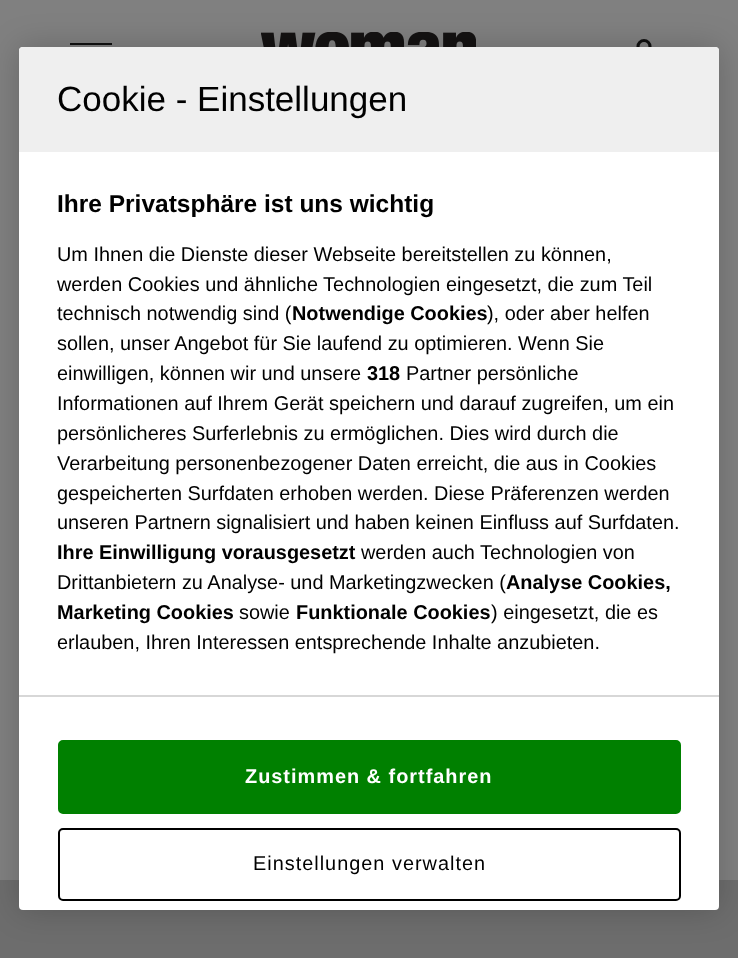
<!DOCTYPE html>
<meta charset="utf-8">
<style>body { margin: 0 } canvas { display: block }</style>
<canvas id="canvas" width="738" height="958"></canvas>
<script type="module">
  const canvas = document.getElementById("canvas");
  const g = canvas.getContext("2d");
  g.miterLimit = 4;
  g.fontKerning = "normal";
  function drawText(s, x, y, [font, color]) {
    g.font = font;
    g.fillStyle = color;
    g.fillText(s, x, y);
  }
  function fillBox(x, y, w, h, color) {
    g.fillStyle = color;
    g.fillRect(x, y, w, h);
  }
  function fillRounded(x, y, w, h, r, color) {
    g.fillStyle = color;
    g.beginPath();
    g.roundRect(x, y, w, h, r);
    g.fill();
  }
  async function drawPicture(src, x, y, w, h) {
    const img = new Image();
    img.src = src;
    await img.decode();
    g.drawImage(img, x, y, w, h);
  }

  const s1 = ["35px Liberation Sans", "#000000"];
  const s2 = ["bold 24.5px Liberation Sans", "#000000"];
  const s3 = ["19.9px Liberation Sans", "#000000"];
  const s4 = ["bold 19.9px Liberation Sans", "#000000"];
  const s5 = ["bold 19.9px Liberation Sans", "#FFFFFF"];

  fillBox(0, 0, 738, 958, "#808080");
  fillBox(70, 43, 42, 2, "#111111");
  await drawPicture("pic1.png", 261, 32, 215, 15);
  g.beginPath();
  g.arc(644, 46.5, 6, 0, Math.PI * 2);
  g.strokeStyle = "#111111";
  g.lineWidth = 3.1;
  g.stroke();
  fillBox(0, 880, 738, 78, "#6D6D6D");
  g.fillStyle = "rgba(0, 0, 0, 0.2)";
  g.filter = "blur(16px)";
  g.beginPath();
  g.roundRect(19, 47, 700, 863, 4);
  g.fill();
  g.filter = "none";
  fillRounded(19, 47, 700, 863, 4, "#FFFFFF");
  g.fillStyle = "#EFEFEF";
  g.beginPath();
  g.roundRect(19, 47, 700, 105, [4, 4, 0, 0]);
  g.fill();
  drawText("Cookie - Einstellungen", 57, 111, s1);
  drawText("Ihre Privatsphäre ist uns wichtig", 57, 212, s2);
  drawText("Um Ihnen die Dienste dieser Webseite bereitstellen zu können,", 57, 261, s3);
  drawText("werden Cookies und ähnliche Technologien eingesetzt, die zum Teil", 57, 291, s3);
  drawText("technisch notwendig sind (", 57, 320, s3);
  drawText("Notwendige Cookies", 292, 320, s4);
  drawText("), oder aber helfen", 487, 320, s3);
  drawText("sollen, unser Angebot für Sie laufend zu optimieren. Wenn Sie", 57, 350, s3);
  drawText("einwilligen, können wir und unsere", 57, 380, s3);
  drawText("318", 367, 380, s4);
  drawText("Partner persönliche", 406, 380, s3);
  drawText("Informationen auf Ihrem Gerät speichern und darauf zugreifen, um ein", 57, 410, s3);
  drawText("persönlicheres Surferlebnis zu ermöglichen. Dies wird durch die", 57, 440, s3);
  drawText("Verarbeitung personenbezogener Daten erreicht, die aus in Cookies", 57, 470, s3);
  drawText("gespeicherten Surfdaten erhoben werden. Diese Präferenzen werden", 57, 500, s3);
  drawText("unseren Partnern signalisiert und haben keinen Einfluss auf Surfdaten.", 57, 529, s3);
  drawText("Ihre Einwilligung vorausgesetzt", 57, 559, s4);
  drawText("werden auch Technologien von", 361, 559, s3);
  drawText("Drittanbietern zu Analyse- und Marketingzwecken (", 57, 589, s3);
  drawText("Analyse Cookies,", 506, 589, s4);
  drawText("Marketing Cookies", 57, 619, s4);
  drawText("sowie", 239, 619, s3);
  drawText("Funktionale Cookies", 296, 619, s4);
  drawText(") eingesetzt, die es", 491, 619, s3);
  drawText("erlauben, Ihren Interessen entsprechende Inhalte anzubieten.", 57, 649, s3);
  fillBox(19, 695, 700, 2, "#D7D7D7");
  g.fillStyle = "#008000";
  g.beginPath();
  g.roundRect(59, 741, 621, 72, 4);
  g.fill();
  g.strokeStyle = "#008000";
  g.lineWidth = 2;
  g.stroke();
  g.letterSpacing = "1px";
  drawText("Zustimmen & fortfahren", 245, 783, s5);
  g.beginPath();
  g.roundRect(59, 829, 621, 71, 4);
  g.strokeStyle = "#000000";
  g.stroke();
  drawText("Einstellungen verwalten", 253, 870, s3);
</script>
